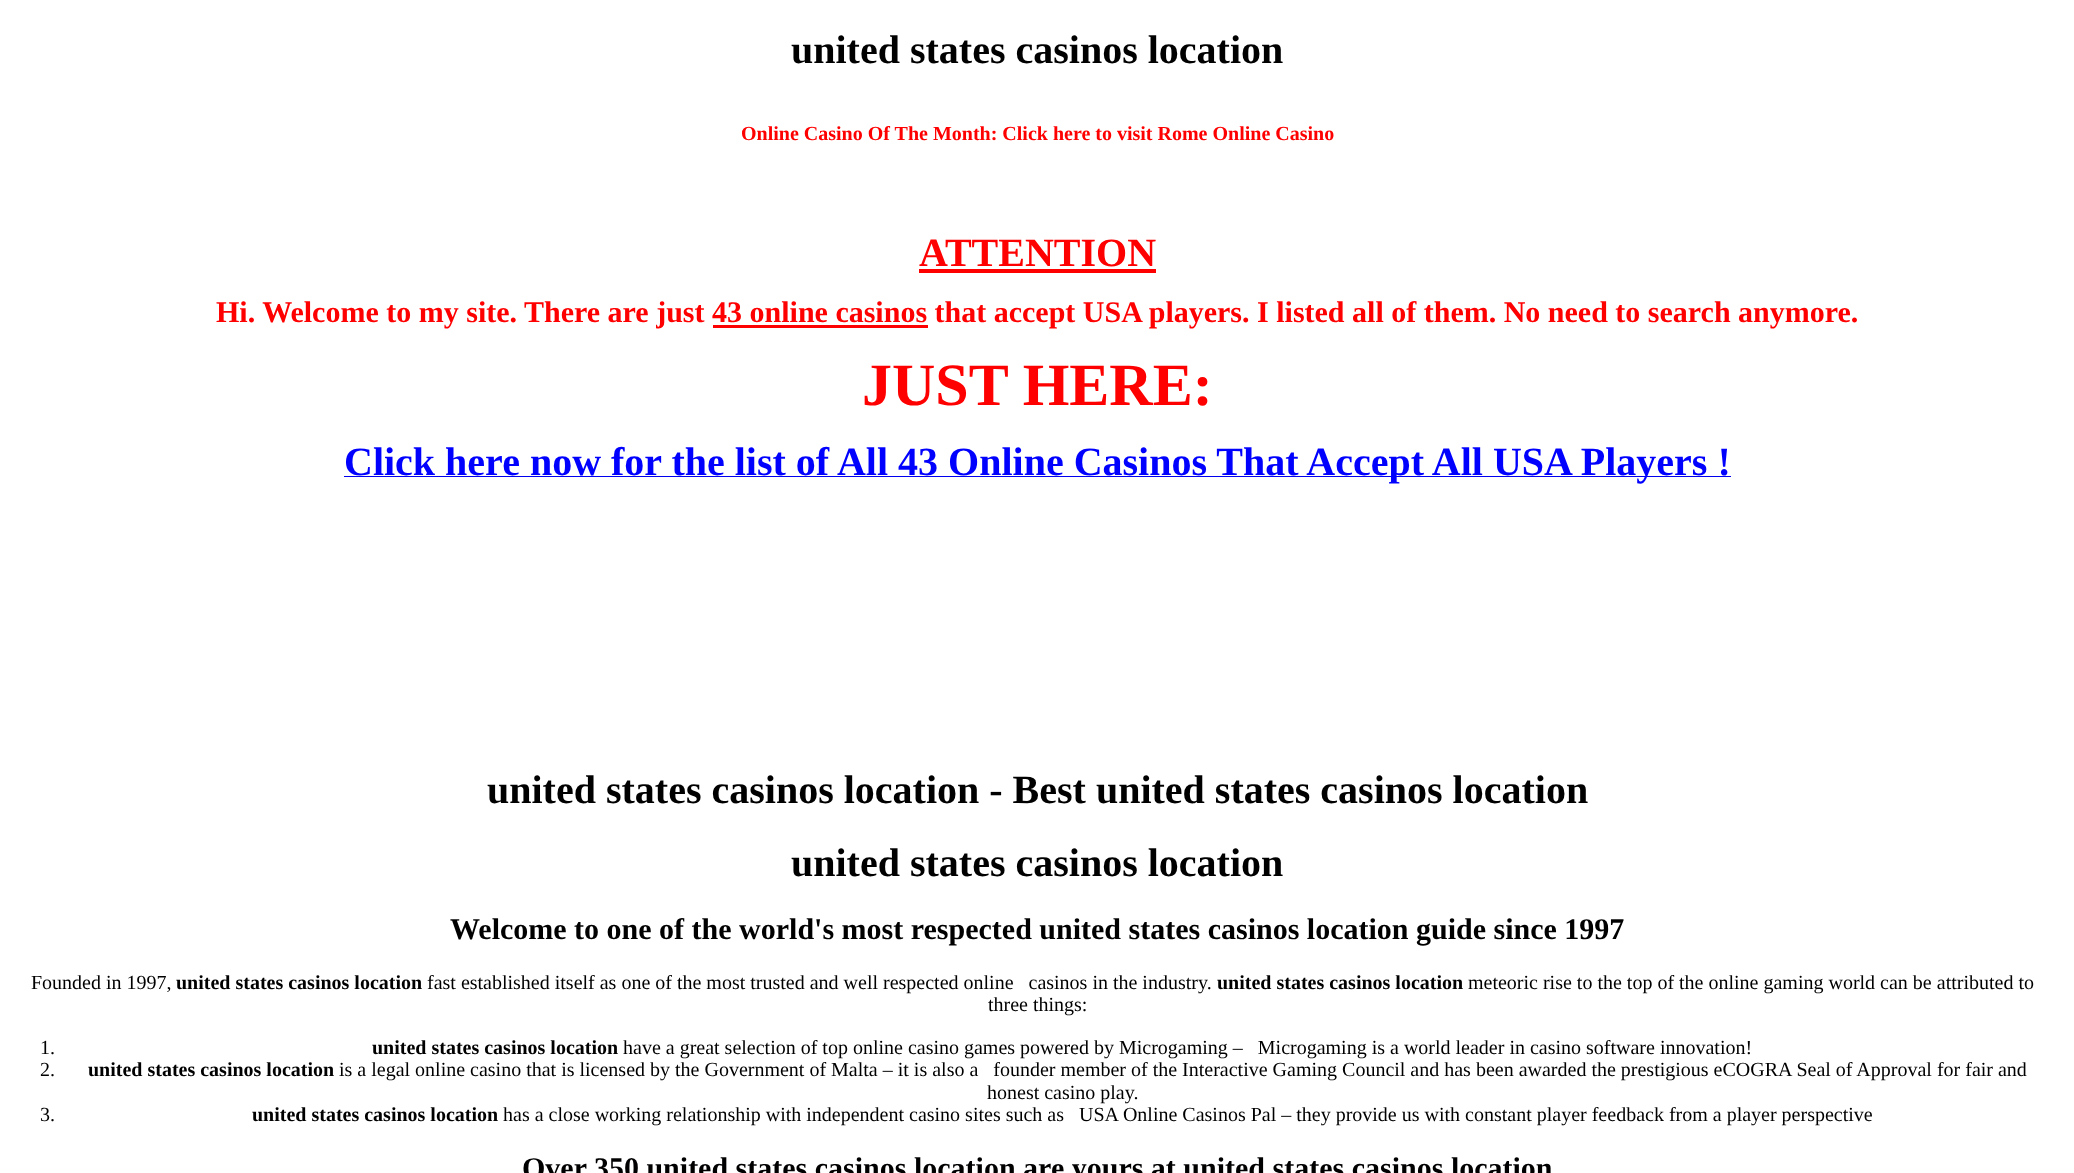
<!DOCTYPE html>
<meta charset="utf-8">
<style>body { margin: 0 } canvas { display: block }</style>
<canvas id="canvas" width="2074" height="1173"></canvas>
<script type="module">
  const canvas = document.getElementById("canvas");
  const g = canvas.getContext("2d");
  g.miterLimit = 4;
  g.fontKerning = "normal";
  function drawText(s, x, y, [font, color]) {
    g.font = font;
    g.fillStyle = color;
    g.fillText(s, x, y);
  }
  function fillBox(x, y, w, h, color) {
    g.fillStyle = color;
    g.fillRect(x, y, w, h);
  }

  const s1 = ["bold 40px Liberation Serif", "#000000"];
  const s2 = ["bold 20px Liberation Serif", "#FF0000"];
  const s3 = ["bold 40px Liberation Serif", "#FF0000"];
  const s4 = ["bold 30px Liberation Serif", "#FF0000"];
  const s5 = ["bold 60px Liberation Serif", "#FF0000"];
  const s6 = ["bold 40px Liberation Serif", "#0000FF"];
  const s7 = ["bold 30px Liberation Serif", "#000000"];
  const s8 = ["20px Liberation Serif", "#000000"];
  const s9 = ["bold 20px Liberation Serif", "#000000"];

  fillBox(0, 0, 2074, 1173, "#FFFFFF");
  drawText("united states casinos location", 791, 63, s1);
  drawText("Online Casino Of The Month: Click here to visit Rome Online Casino", 741, 140, s2);
  drawText("ATTENTION", 919, 266, s3);
  fillBox(919, 269, 237, 4, "#FF0000");
  drawText("Hi. Welcome to my site. There are just 43 online casinos that accept USA players. I listed all of them. No need to search anymore.", 216, 322, s4);
  fillBox(713, 325, 215, 3, "#FF0000");
  drawText("JUST HERE:", 862, 405, s5);
  fillBox(344, 476, 1387, 1, "#0000EE");
  drawText("Click here now for the list of All 43 Online Casinos That Accept All USA Players !", 344, 475, s6);
  drawText("united states casinos location - Best united states casinos location", 487, 803, s1);
  drawText("united states casinos location", 791, 876, s1);
  drawText("Welcome to one of the world's most respected united states casinos location guide since 1997", 450, 939, s7);
  drawText("Founded in 1997,", 31, 989, s8);
  drawText("united states casinos location", 176, 989, s9);
  drawText("fast established itself as one of the most trusted and well respected online   casinos in the industry.", 427, 989, s8);
  drawText("united states casinos location", 1217, 989, s9);
  drawText("meteoric rise to the top of the online gaming world can be attributed to", 1468, 989, s8);
  drawText("three things:", 988, 1011, s8);
  drawText("1.", 40, 1054, s8);
  drawText("united states casinos location", 372, 1054, s9);
  drawText("have a great selection of top online casino games powered by Microgaming –   Microgaming is a world leader in casino software innovation!", 623, 1054, s8);
  drawText("2.", 40, 1076, s8);
  drawText("united states casinos location", 88, 1076, s9);
  drawText("is a legal online casino that is licensed by the Government of Malta – it is also a   founder member of the Interactive Gaming Council and has been awarded the prestigious eCOGRA Seal of Approval for fair and", 339, 1076, s8);
  drawText("honest casino play.", 987, 1099, s8);
  drawText("3.", 40, 1121, s8);
  drawText("united states casinos location", 252, 1121, s9);
  drawText("has a close working relationship with independent casino sites such as   USA Online Casinos Pal – they provide us with constant player feedback from a player perspective", 503, 1121, s8);
  drawText("Over 350 united states casinos location are yours at united states casinos location", 522, 1178, s7);
</script>
